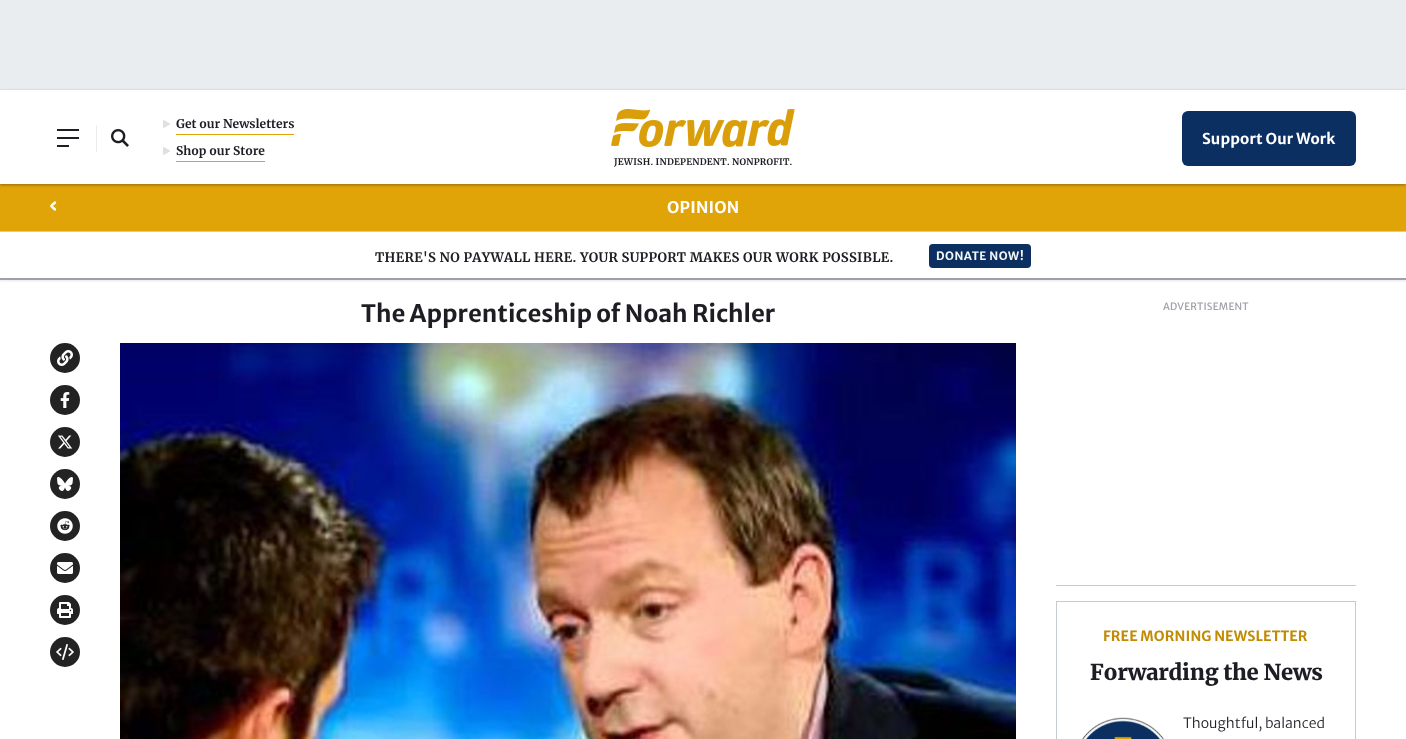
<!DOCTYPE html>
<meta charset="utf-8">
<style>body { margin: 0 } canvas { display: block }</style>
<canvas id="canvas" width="1406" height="739"></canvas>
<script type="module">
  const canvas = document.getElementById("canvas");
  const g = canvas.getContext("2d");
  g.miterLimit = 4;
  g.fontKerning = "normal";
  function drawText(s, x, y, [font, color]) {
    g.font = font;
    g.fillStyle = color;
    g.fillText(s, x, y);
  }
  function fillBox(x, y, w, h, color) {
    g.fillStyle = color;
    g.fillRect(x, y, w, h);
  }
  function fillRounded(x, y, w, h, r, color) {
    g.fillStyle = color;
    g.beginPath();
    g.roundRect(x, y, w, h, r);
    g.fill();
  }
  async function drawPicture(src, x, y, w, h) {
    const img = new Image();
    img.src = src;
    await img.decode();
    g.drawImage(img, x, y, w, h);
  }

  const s1 = ["bold 12px Merriweather", "#1E1D24"];
  const s2 = ["bold 15px Merriweather Sans", "#FFFFFF"];
  const s3 = ["bold 9px Merriweather", "#1E1D24"];
  const s4 = ["bold 16px Merriweather Sans", "#FFFFFF"];
  const s5 = ["bold 13px Merriweather", "#1E1D24"];
  const s6 = ["bold 11.5px Merriweather Sans", "#F5F7F8"];
  const s7 = ["bold 24px Merriweather Sans", "#1E1D24"];
  const s8 = ["10px Merriweather Sans", "#A0A0A8"];
  const s9 = ["bold 14px Merriweather Sans", "#C18C04"];
  const s10 = ["900 22px Merriweather", "#1E1D24"];
  const s11 = ["300 14px Merriweather Sans", "#1E1D24"];

  fillBox(0, 0, 1406, 739, "#FFFFFF");
  fillBox(0, 0, 1406, 90, "#E9EDF0");
  fillBox(0, 184, 1406, 47, "#E0A408");
  g.save();
  g.beginPath();
  g.moveTo(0, 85);
  g.lineTo(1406, 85);
  g.lineTo(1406, 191);
  g.lineTo(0, 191);
  g.closePath();
  g.moveTo(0, 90);
  g.lineTo(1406, 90);
  g.lineTo(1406, 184);
  g.lineTo(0, 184);
  g.closePath();
  g.clip("evenodd");
  g.fillStyle = "rgba(0, 0, 0, 0.35)";
  g.filter = "blur(1.5px)";
  g.beginPath();
  g.rect(0, 91, 1406, 94);
  g.fill();
  g.filter = "none";
  g.restore();
  fillBox(57, 129, 22, 2, "#1E1D24");
  fillBox(96, 125, 1, 27, "#E9EDF0");
  fillBox(57, 137, 22, 2, "#1E1D24");
  fillBox(57, 145, 12, 2, "#1E1D24");
  await drawPicture("pic1.png", 111, 129, 18, 18);
  fillBox(176, 134, 118, 1, "#E0A408");
  await drawPicture("pic2.png", 163, 120, 7, 8);
  drawText("Get our Newsletters", 176, 128, s1);
  fillBox(176, 161, 89, 1, "#E0A408");
  await drawPicture("pic2.png", 163, 147, 7, 8);
  drawText("Shop our Store", 176, 155, s1);
  fillRounded(1182, 111, 174, 55, 6, "#0B2F60");
  g.letterSpacing = "0.1px";
  drawText("Support Our Work", 1202, 144, s2);
  await drawPicture("pic3.png", 611, 109, 184, 38);
  g.letterSpacing = "0.2px";
  drawText("JEWISH. INDEPENDENT. NONPROFIT.", 614, 165, s3);
  fillBox(0, 231, 1406, 1, "#C4CCD1");
  g.beginPath();
  g.moveTo(55, 202.5);
  g.bezierCurveTo(50, 207, 50, 205, 55, 209.5);
  g.strokeStyle = "#FFFFFF";
  g.lineWidth = 2.4;
  g.lineCap = "round";
  g.lineJoin = "round";
  g.stroke();
  drawText("OPINION", 667, 213, s4);
  g.letterSpacing = "0.3px";
  drawText("THERE'S NO PAYWALL HERE. YOUR SUPPORT MAKES OUR WORK POSSIBLE.", 375, 262, s5);
  fillRounded(929, 244, 102, 24, 4, "#0B2F60");
  g.letterSpacing = "0.5px";
  drawText("DONATE NOW!", 936, 260, s6);
  g.fillStyle = "rgba(0, 0, 0, 0.1)";
  g.filter = "blur(1px)";
  g.beginPath();
  g.rect(0, 279, 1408, 2);
  g.fill();
  g.filter = "none";
  fillBox(0, 278, 1406, 2, "#A0A0A8");
  g.letterSpacing = "0px";
  drawText("The Apprenticeship of Noah Richler", 361, 322, s7);
  g.fillStyle = "#232323";
  g.beginPath();
  g.arc(65, 358, 15, 0, Math.PI * 2);
  g.fill();
  await drawPicture("pic4.png", 57, 350, 16, 16);
  g.beginPath();
  g.arc(65, 400, 15, 0, Math.PI * 2);
  g.fill();
  await drawPicture("pic5.png", 60, 392, 10, 16);
  g.beginPath();
  g.arc(65, 442, 15, 0, Math.PI * 2);
  g.fill();
  await drawPicture("pic6.png", 58, 435, 15, 14);
  g.beginPath();
  g.arc(65, 484, 15, 0, Math.PI * 2);
  g.fill();
  await drawPicture("pic7.png", 57, 477, 16, 14);
  g.beginPath();
  g.arc(65, 526, 15, 0, Math.PI * 2);
  g.fill();
  await drawPicture("pic8.png", 57, 518, 16, 16);
  g.beginPath();
  g.arc(65, 568, 15, 0, Math.PI * 2);
  g.fill();
  await drawPicture("pic9.png", 57, 562, 16, 12);
  g.beginPath();
  g.arc(65, 610, 15, 0, Math.PI * 2);
  g.fill();
  await drawPicture("pic10.png", 57, 602, 16, 16);
  g.beginPath();
  g.arc(65, 652, 15, 0, Math.PI * 2);
  g.fill();
  await drawPicture("pic11.png", 56, 644, 18, 16);
  await drawPicture("pic12.png", 120, 343, 896, 396);
  g.letterSpacing = "0.2px";
  drawText("ADVERTISEMENT", 1163, 310, s8);
  fillBox(1056, 585, 300, 1, "#C4CCD1");
  g.strokeStyle = "#C4CCD1";
  g.lineWidth = 1;
  g.lineJoin = "miter";
  g.strokeRect(1056.5, 601.5, 299, 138);
  g.letterSpacing = "0.1px";
  drawText("FREE MORNING NEWSLETTER", 1103, 641, s9);
  g.letterSpacing = "-0.25px";
  drawText("Forwarding the News", 1090, 680, s10);
  await drawPicture("pic13.png", 1082, 717, 82, 22);
  g.letterSpacing = "0px";
  drawText("Thoughtful, balanced", 1183, 728, s11);
</script>
